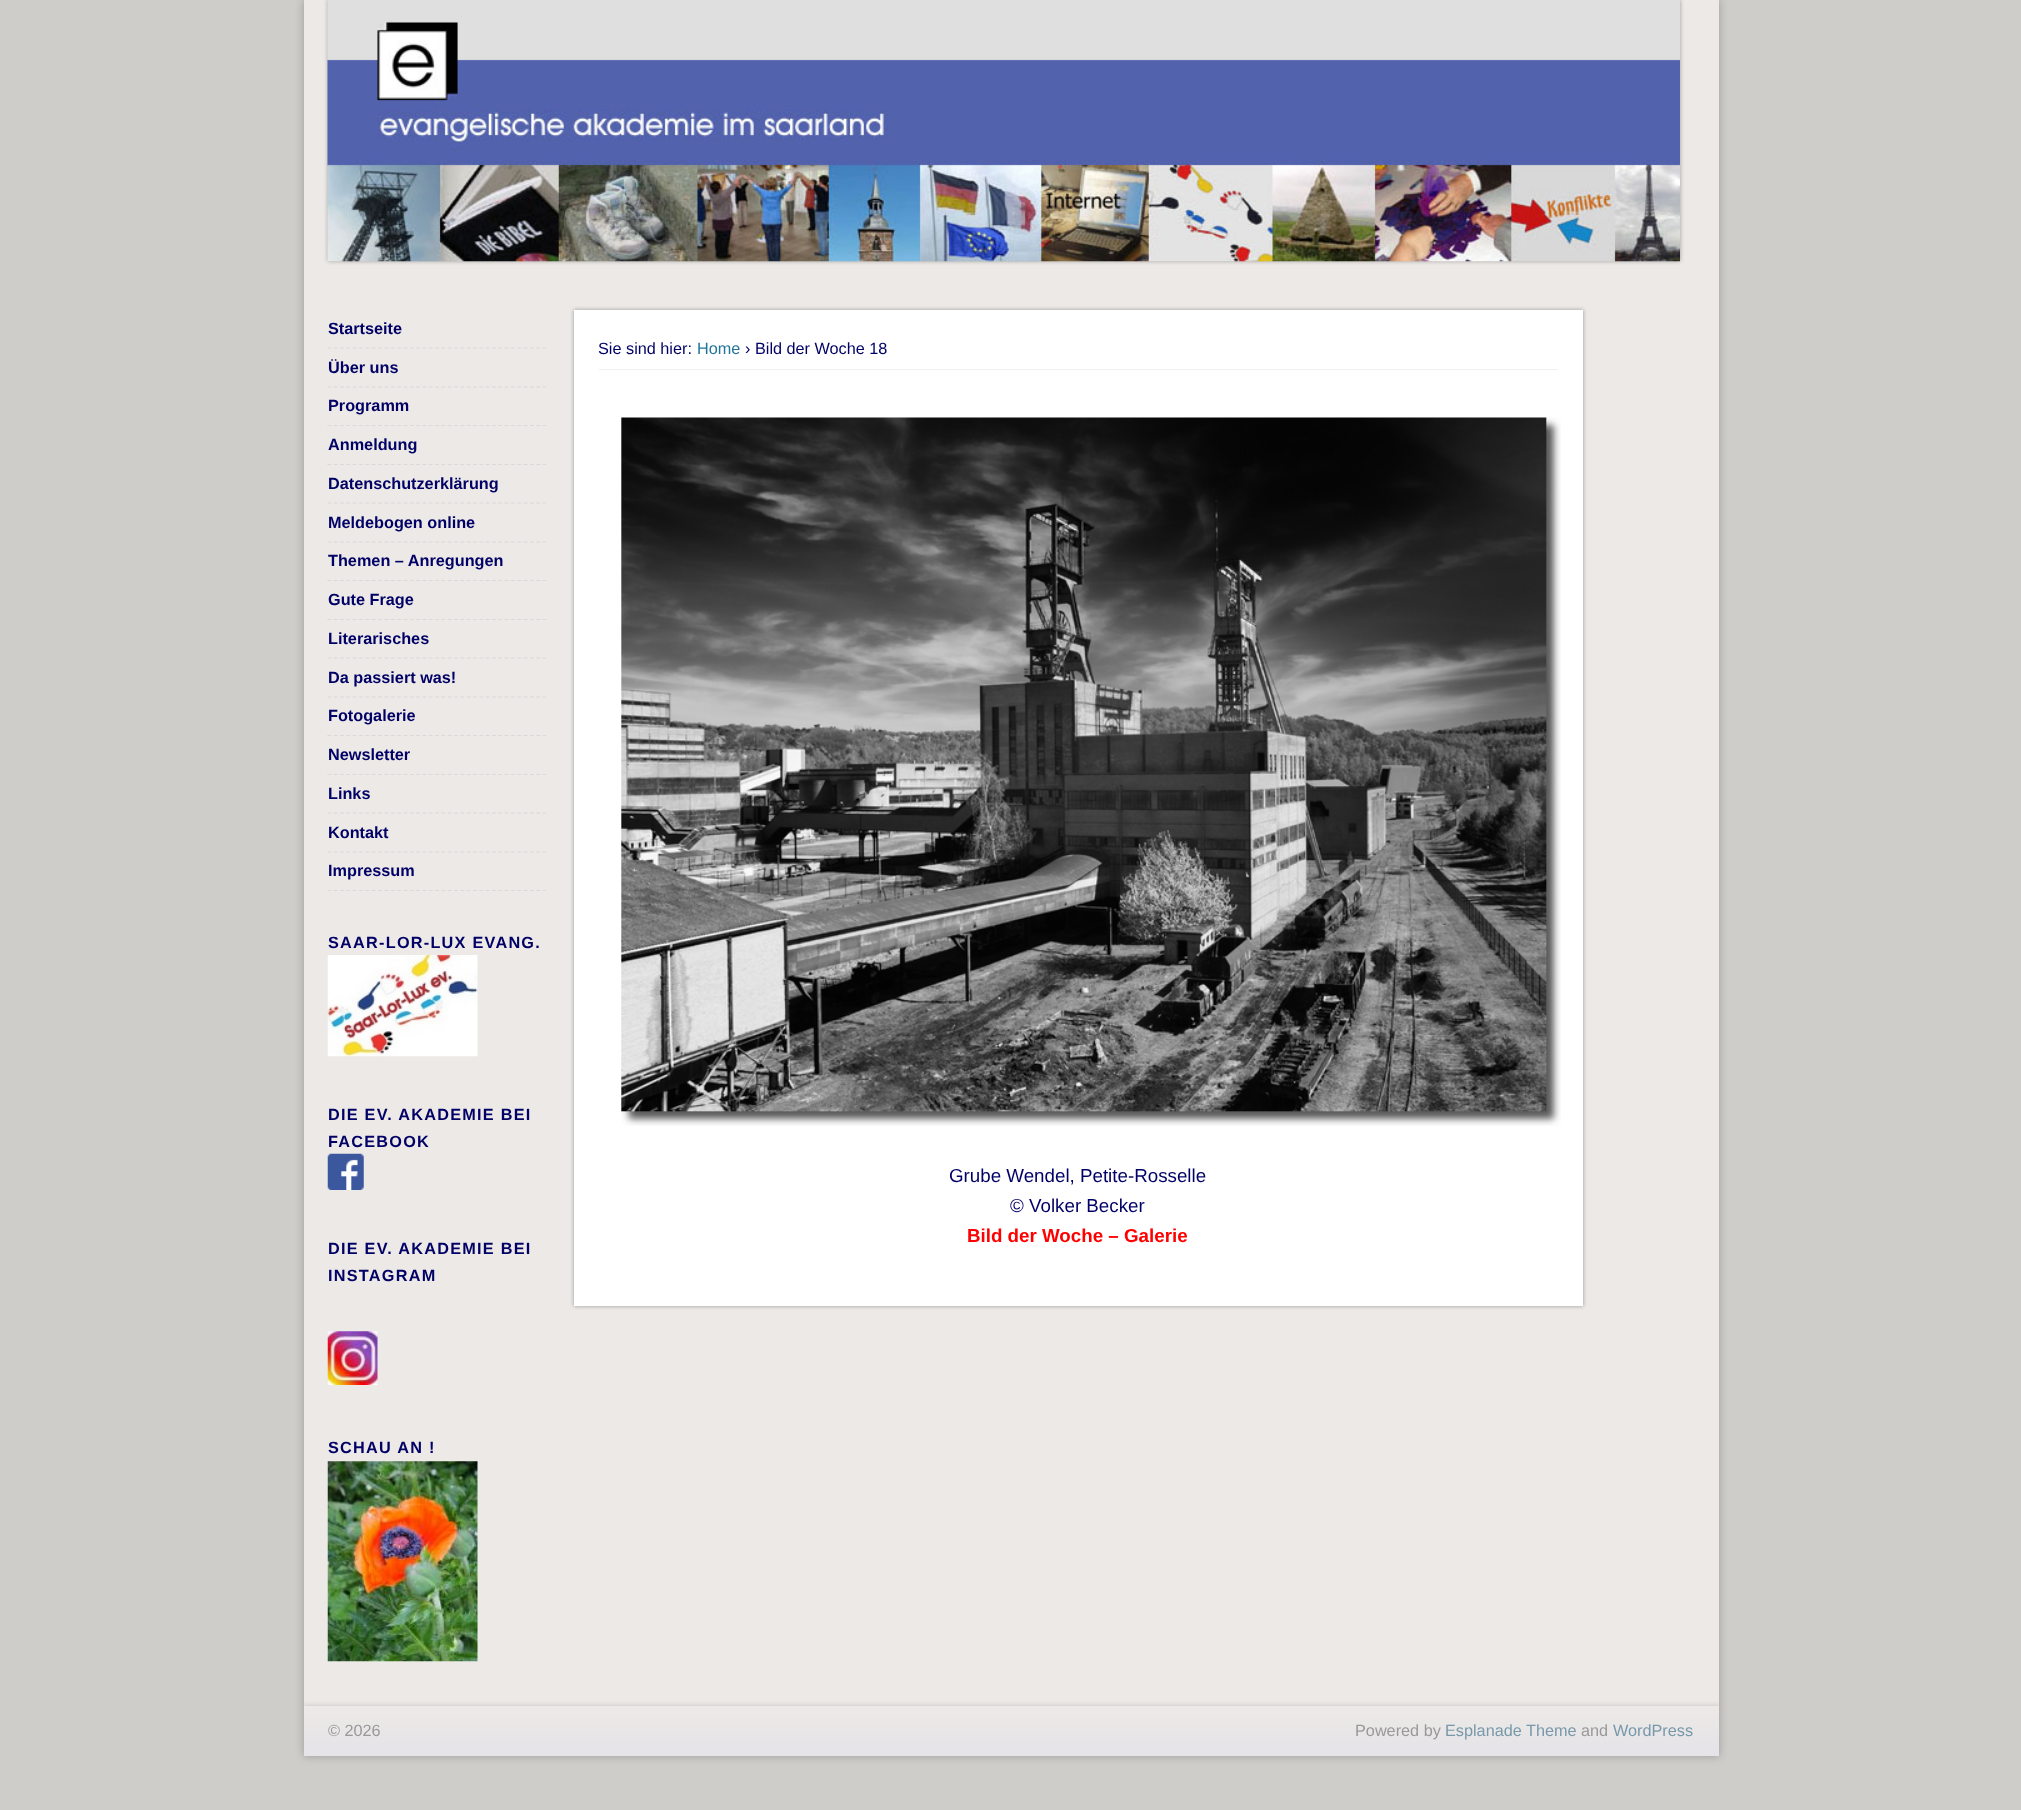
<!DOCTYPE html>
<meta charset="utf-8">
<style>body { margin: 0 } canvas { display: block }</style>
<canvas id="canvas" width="2021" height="1810"></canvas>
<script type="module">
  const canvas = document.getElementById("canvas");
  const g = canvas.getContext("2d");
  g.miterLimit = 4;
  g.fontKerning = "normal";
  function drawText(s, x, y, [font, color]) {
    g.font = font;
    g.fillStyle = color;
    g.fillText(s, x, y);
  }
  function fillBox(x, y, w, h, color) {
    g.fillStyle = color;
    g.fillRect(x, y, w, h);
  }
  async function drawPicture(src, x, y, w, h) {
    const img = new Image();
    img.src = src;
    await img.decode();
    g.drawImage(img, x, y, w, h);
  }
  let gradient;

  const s1 = ["bold 16.25px Liberation Sans", "#000066"];
  const s2 = ["16.25px Liberation Sans", "#000066"];
  const s3 = ["16.25px Liberation Sans", "#21759B"];
  const s4 = ["18.75px Liberation Sans", "#000066"];
  const s5 = ["bold 18.75px Liberation Sans", "#FF0000"];
  const s6 = ["16.25px Liberation Sans", "#999999"];
  const s7 = ["16.25px Liberation Sans", "#7799AA"];

  fillBox(0, 0, 2021, 1810, "#CFCDC9");
  g.fillStyle = "#999999";
  g.filter = "blur(4px)";
  g.beginPath();
  g.rect(304, 0, 1415, 1756);
  g.fill();
  g.filter = "none";
  fillBox(304, 0, 1415, 1706, "#ECE9E6");
  g.fillStyle = "#999999";
  g.filter = "blur(2px)";
  g.beginPath();
  g.rect(328, 0, 1352, 261);
  g.fill();
  g.filter = "none";
  await drawPicture("pic1.png", 327, 0, 1353, 262);
  g.beginPath();
  g.moveTo(327.5, 348);
  g.lineTo(546, 348);
  g.strokeStyle = "#D9D9D9";
  g.lineWidth = 1.2;
  g.setLineDash([3.75, 2.58]);
  g.stroke();
  drawText("Startseite", 328, 334, s1);
  g.beginPath();
  g.moveTo(327.5, 387);
  g.lineTo(546, 387);
  g.stroke();
  drawText("Über uns", 328, 373, s1);
  g.beginPath();
  g.moveTo(327.5, 425.5);
  g.lineTo(546, 425.5);
  g.stroke();
  drawText("Programm", 328, 411, s1);
  g.beginPath();
  g.moveTo(327.5, 464.5);
  g.lineTo(546, 464.5);
  g.stroke();
  drawText("Anmeldung", 328, 450, s1);
  g.beginPath();
  g.moveTo(327.5, 503);
  g.lineTo(546, 503);
  g.stroke();
  drawText("Datenschutzerklärung", 328, 489, s1);
  g.beginPath();
  g.moveTo(327.5, 542);
  g.lineTo(546, 542);
  g.stroke();
  drawText("Meldebogen online", 328, 528, s1);
  g.beginPath();
  g.moveTo(327.5, 580.5);
  g.lineTo(546, 580.5);
  g.stroke();
  drawText("Themen – Anregungen", 328, 566, s1);
  g.beginPath();
  g.moveTo(327.5, 619.5);
  g.lineTo(546, 619.5);
  g.stroke();
  drawText("Gute Frage", 328, 605, s1);
  g.beginPath();
  g.moveTo(327.5, 658);
  g.lineTo(546, 658);
  g.stroke();
  drawText("Literarisches", 328, 644, s1);
  g.beginPath();
  g.moveTo(327.5, 697);
  g.lineTo(546, 697);
  g.stroke();
  drawText("Da passiert was!", 328, 683, s1);
  g.beginPath();
  g.moveTo(327.5, 735.5);
  g.lineTo(546, 735.5);
  g.stroke();
  drawText("Fotogalerie", 328, 721, s1);
  g.beginPath();
  g.moveTo(327.5, 774.5);
  g.lineTo(546, 774.5);
  g.stroke();
  drawText("Newsletter", 328, 760, s1);
  g.beginPath();
  g.moveTo(327.5, 813);
  g.lineTo(546, 813);
  g.stroke();
  drawText("Links", 328, 799, s1);
  g.beginPath();
  g.moveTo(327.5, 852);
  g.lineTo(546, 852);
  g.stroke();
  drawText("Kontakt", 328, 838, s1);
  g.save();
  g.beginPath();
  g.rect(328, 310, 218, 581);
  g.clip();
  g.beginPath();
  g.moveTo(327.5, 890.5);
  g.lineTo(546, 890.5);
  g.stroke();
  g.restore();
  drawText("Impressum", 328, 876, s1);
  g.letterSpacing = "1.25px";
  drawText("SAAR-LOR-LUX EVANG.", 328, 948, s1);
  await drawPicture("pic2.png", 327, 955, 151, 102);
  drawText("DIE EV. AKADEMIE BEI", 328, 1120, s1);
  drawText("FACEBOOK", 328, 1147, s1);
  await drawPicture("pic3.png", 327, 1153, 37, 37);
  drawText("DIE EV. AKADEMIE BEI", 328, 1254, s1);
  drawText("INSTAGRAM", 328, 1281, s1);
  await drawPicture("pic4.png", 327, 1331, 51, 54);
  drawText("SCHAU AN !", 328, 1453, s1);
  await drawPicture("pic5.png", 327, 1461, 151, 201);
  g.fillStyle = "#999999";
  g.filter = "blur(2px)";
  g.beginPath();
  g.rect(574, 310, 1009, 996);
  g.fill();
  g.filter = "none";
  fillBox(574, 310, 1009, 996, "#FFFFFF");
  fillBox(599, 369, 959, 1, "#F3EFEC");
  g.letterSpacing = "0px";
  drawText("Sie sind hier:", 598, 354, s2);
  drawText("Home", 697, 354, s3);
  drawText("› Bild der Woche 18", 745, 354, s2);
  await drawPicture("pic6.png", 621, 417, 940, 709);
  drawText("Grube Wendel, Petite-Rosselle", 949, 1182, s4);
  drawText("© Volker Becker", 1010, 1212, s4);
  drawText("Bild der Woche – Galerie", 967, 1242, s5);
  g.save();
  g.beginPath();
  g.rect(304, 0, 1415, 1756);
  g.clip();
  g.fillStyle = "#CCCCCC";
  g.filter = "blur(2px)";
  g.beginPath();
  g.rect(304, 1705, 1415, 50);
  g.fill();
  g.filter = "none";
  g.restore();
  gradient = g.createLinearGradient(1011, 1706, 1011, 1756);
  gradient.addColorStop(0, "#ECE9E6");
  gradient.addColorStop(1, "#E6E3E9");
  g.fillStyle = gradient;
  g.fillRect(304, 1706, 1415, 50);
  drawText("© 2026", 328, 1736, s6);
  drawText("Powered by", 1355, 1736, s6);
  drawText("Esplanade Theme", 1445, 1736, s7);
  drawText("and", 1581, 1736, s6);
  drawText("WordPress", 1613, 1736, s7);
</script>
